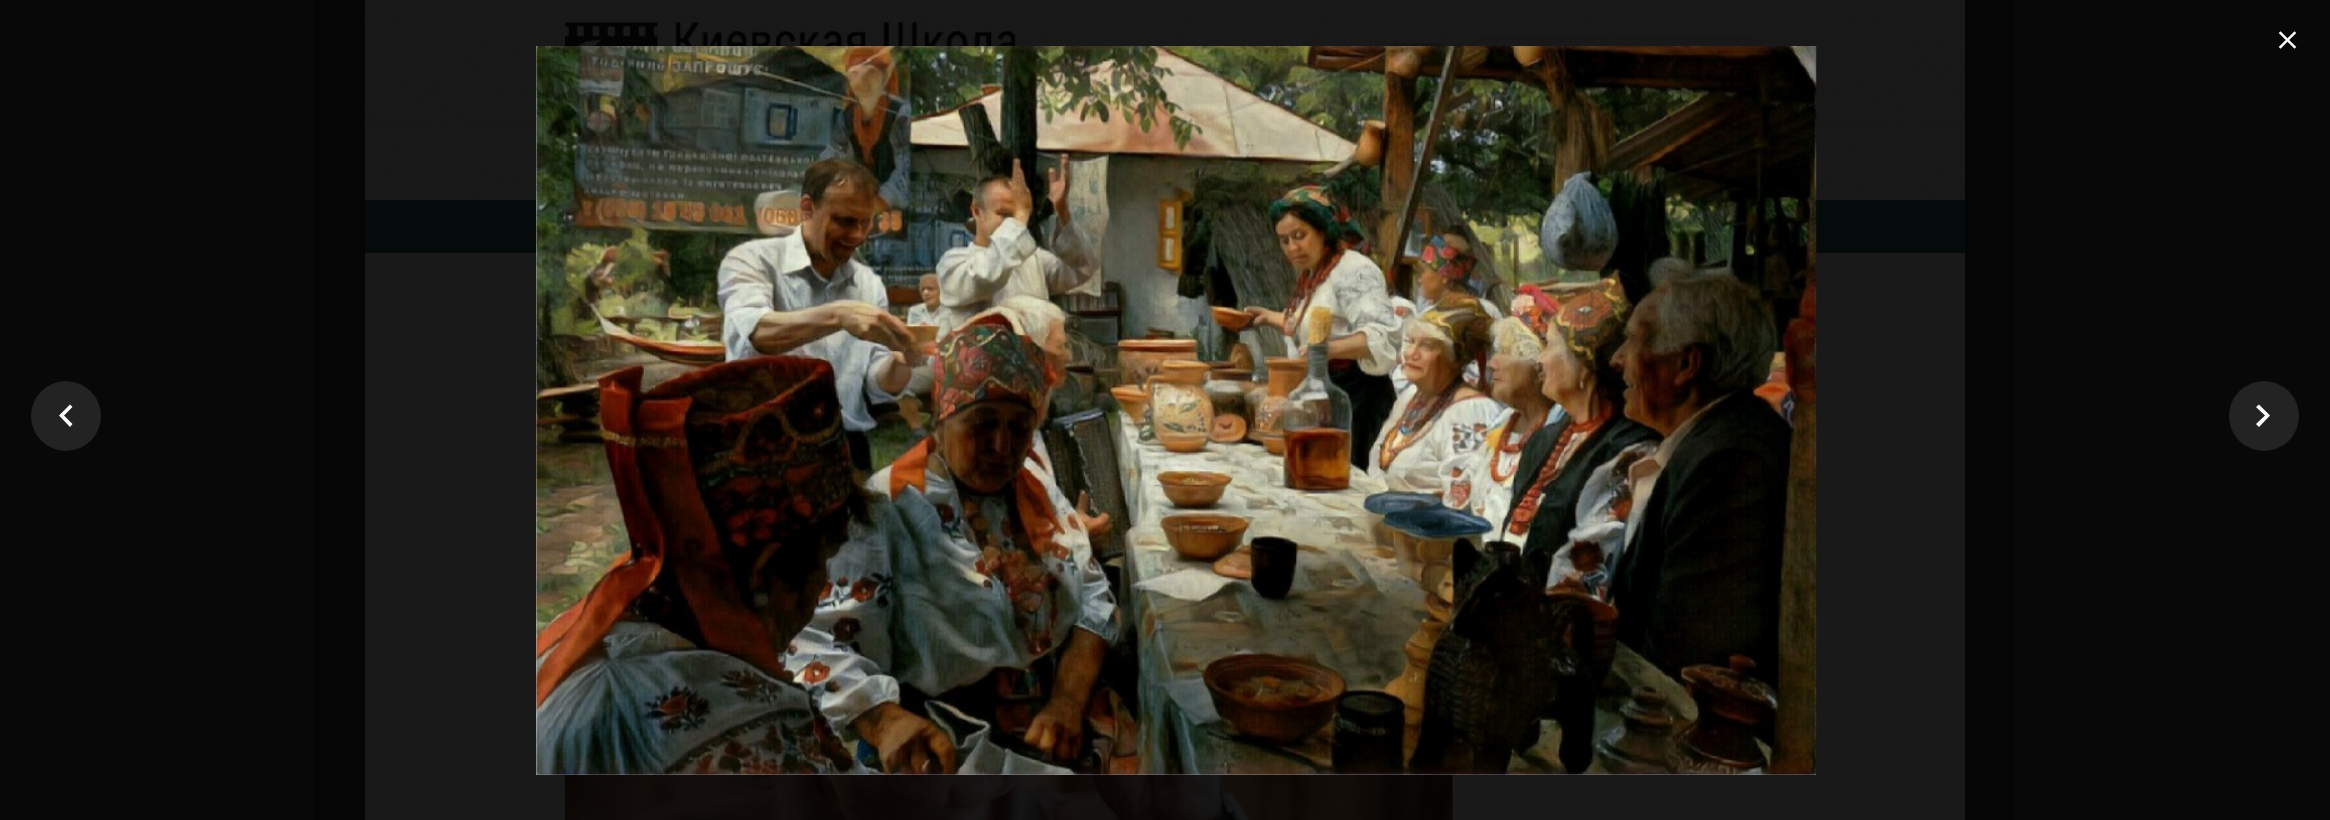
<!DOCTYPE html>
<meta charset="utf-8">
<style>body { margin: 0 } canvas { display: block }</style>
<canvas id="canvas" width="2330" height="820"></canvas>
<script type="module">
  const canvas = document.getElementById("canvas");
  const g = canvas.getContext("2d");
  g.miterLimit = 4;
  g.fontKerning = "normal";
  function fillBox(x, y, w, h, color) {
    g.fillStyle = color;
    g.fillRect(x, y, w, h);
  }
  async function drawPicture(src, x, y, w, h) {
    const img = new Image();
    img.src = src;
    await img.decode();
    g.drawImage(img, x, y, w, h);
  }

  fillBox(0, 0, 2330, 820, "#080808");
  fillBox(315, 0, 1700, 820, "#050505");
  await drawPicture("pic1.png", 365, 0, 1600, 126);
  await drawPicture("pic2.png", 565, 22, 452, 24);
  fillBox(1391, 43, 49, 3, "#141414");
  g.beginPath();
  g.roundRect(1470.5, 38.5, 294, 34, 17);
  g.strokeStyle = "#141414";
  g.stroke();
  await drawPicture("pic3.png", 365, 127, 1600, 73);
  fillBox(365, 126, 1600, 1, "#161616");
  fillBox(365, 200, 1600, 53, "#050B0B");
  fillBox(365, 253, 1600, 567, "#191919");
  await drawPicture("pic4.png", 565, 775, 888, 45);
  await drawPicture("pic5.png", 2278, 31, 19, 18);
  fillBox(536, 46, 1280, 729, "#FFFFFF");
  await drawPicture("pic6.png", 536, 46, 1281, 729);
  g.fillStyle = "#232323";
  g.beginPath();
  g.arc(66, 416, 35, 0, Math.PI * 2);
  g.fill();
  g.fillStyle = "#FFFFFF";
  g.beginPath();
  g.moveTo(72.5, 407);
  g.lineTo(64, 415.5);
  g.lineTo(72.5, 424);
  g.lineTo(70, 427);
  g.lineTo(59, 415.5);
  g.lineTo(70, 404.5);
  g.closePath();
  g.fill();
  g.fillStyle = "#232323";
  g.beginPath();
  g.arc(2264, 416, 35, 0, Math.PI * 2);
  g.fill();
  g.fillStyle = "#FFFFFF";
  g.beginPath();
  g.moveTo(2259, 404.5);
  g.lineTo(2270, 415.5);
  g.lineTo(2259, 427);
  g.lineTo(2256, 424);
  g.lineTo(2265, 415.5);
  g.lineTo(2256, 407);
  g.closePath();
  g.fill();
</script>
